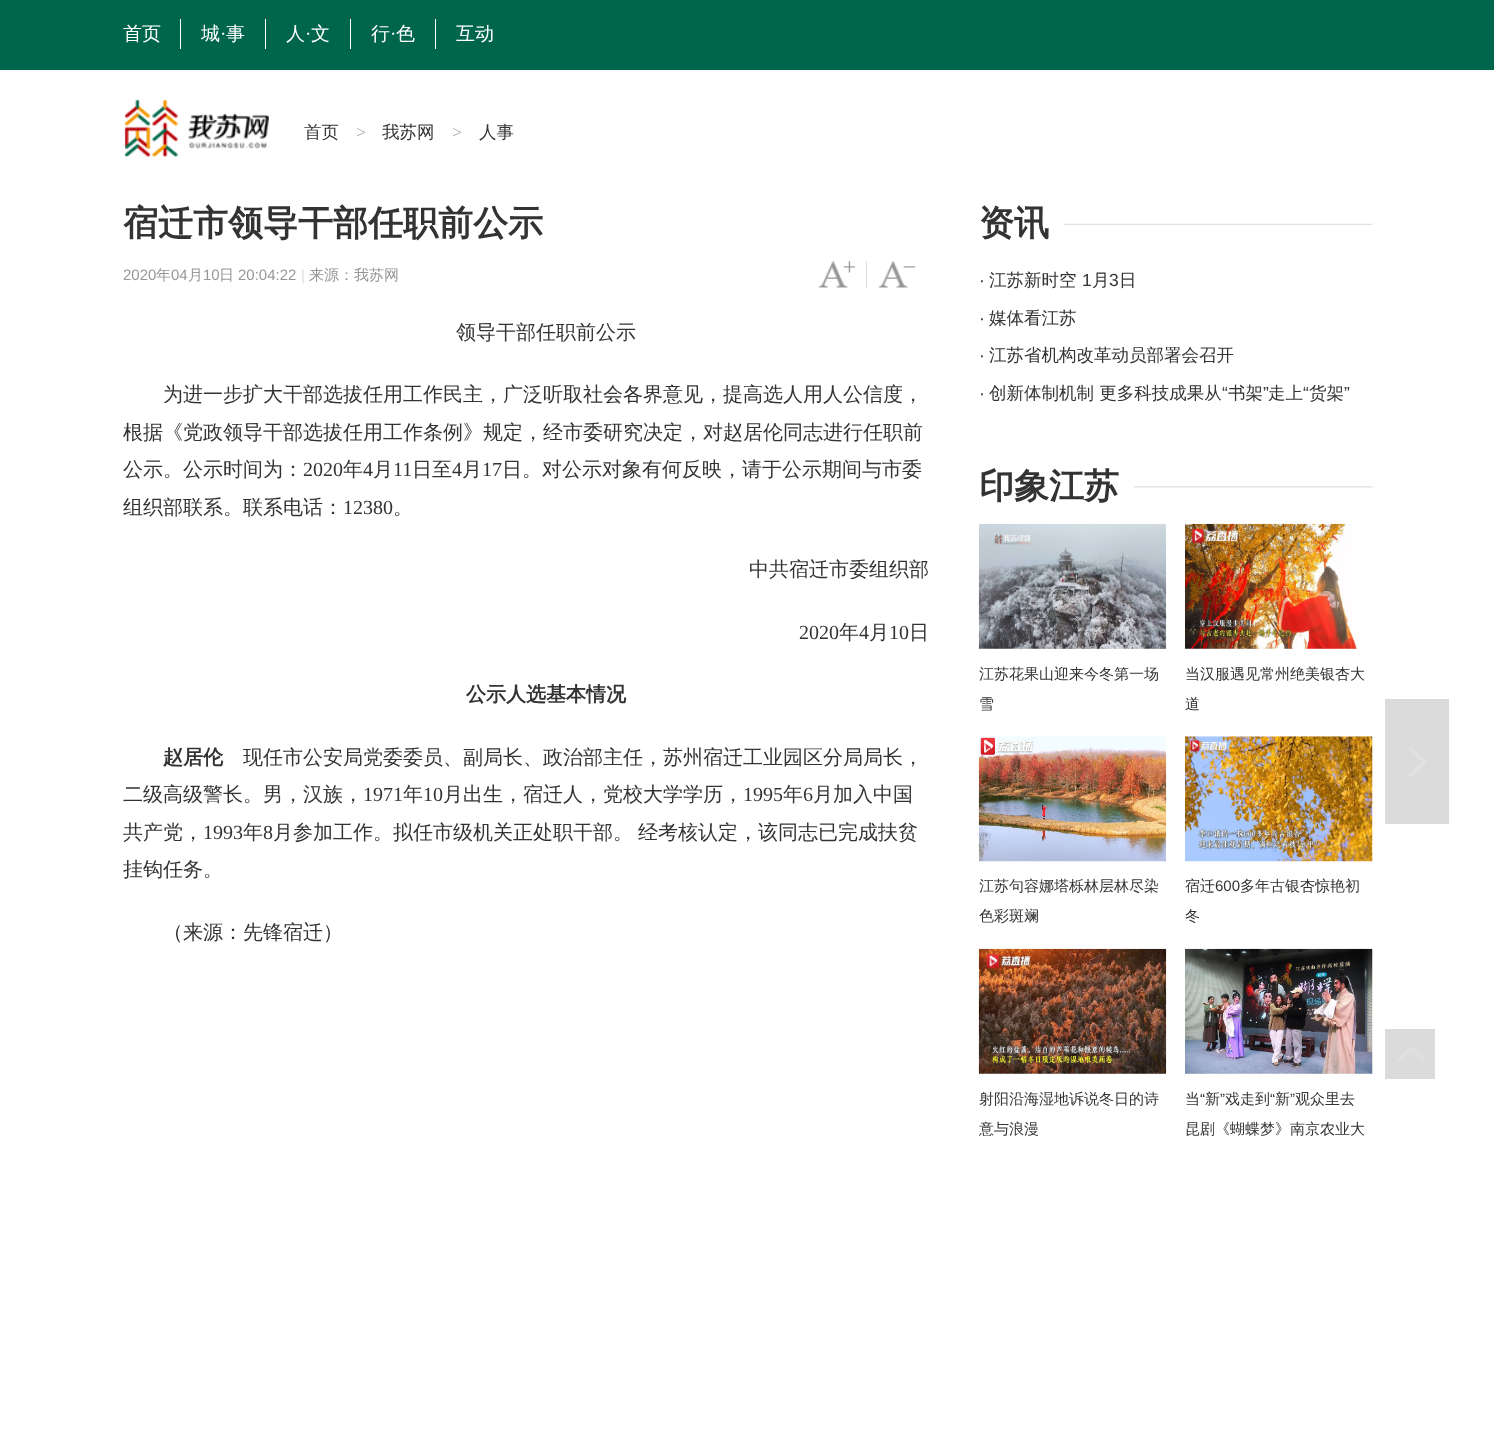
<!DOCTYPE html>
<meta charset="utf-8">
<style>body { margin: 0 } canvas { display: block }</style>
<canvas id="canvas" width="1494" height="1429"></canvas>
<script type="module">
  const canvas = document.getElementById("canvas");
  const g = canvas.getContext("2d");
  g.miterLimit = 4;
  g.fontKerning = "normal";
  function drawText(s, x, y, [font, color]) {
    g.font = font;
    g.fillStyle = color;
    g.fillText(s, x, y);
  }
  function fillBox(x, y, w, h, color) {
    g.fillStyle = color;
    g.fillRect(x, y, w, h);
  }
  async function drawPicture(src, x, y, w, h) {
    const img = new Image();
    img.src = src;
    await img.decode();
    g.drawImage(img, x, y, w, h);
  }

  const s1 = ["500 19px WenQuanYi Zen Hei", "#FFFFFF"];
  const s2 = ["19px Liberation Serif", "#FFFFFF"];
  const s3 = ["500 17.5px WenQuanYi Zen Hei", "#333333"];
  const s4 = ["17.5px Liberation Serif", "#AAAAAA"];
  const s5 = ["bold 35px WenQuanYi Zen Hei", "#333333"];
  const s6 = ["15px Liberation Sans", "#979696"];
  const s7 = ["500 15px WenQuanYi Zen Hei", "#979696"];
  const s8 = ["15px Liberation Sans", "#DDDDDD"];
  const s9 = ["500 20px WenQuanYi Zen Hei", "#333333"];
  const s10 = ["20px Liberation Serif", "#333333"];
  const s11 = ["bold 20px WenQuanYi Zen Hei", "#333333"];
  const s12 = ["17.5px Liberation Sans", "#333333"];
  const s13 = ["500 15px WenQuanYi Zen Hei", "#333333"];
  const s14 = ["15px Liberation Sans", "#333333"];

  fillBox(0, 0, 1494, 1429, "#FFFFFF");
  fillBox(0, 0, 1494, 70, "#00664B");
  fillBox(180, 19, 1, 30, "#FFFFFF");
  drawText("首页", 123, 40, s1);
  fillBox(265, 19, 1, 30, "#FFFFFF");
  drawText("城", 201, 40, s1);
  drawText("·", 220, 40, s2);
  drawText("事", 226, 40, s1);
  fillBox(350, 19, 1, 30, "#FFFFFF");
  drawText("人", 286, 40, s1);
  drawText("·", 305, 40, s2);
  drawText("文", 311, 40, s1);
  fillBox(435, 19, 1, 30, "#FFFFFF");
  drawText("行", 371, 40, s1);
  drawText("·", 390, 40, s2);
  drawText("色", 396, 40, s1);
  drawText("互动", 456, 40, s1);
  await drawPicture("pic1.png", 124, 99, 145, 58);
  drawText("首页", 304, 138, s3);
  drawText(">", 356, 138, s4);
  drawText("我苏网", 382, 138, s3);
  drawText(">", 452, 138, s4);
  drawText("人事", 479, 138, s3);
  drawText("宿迁市领导干部任职前公示", 123, 235, s5);
  drawText("2020", 123, 280, s6);
  drawText("年", 156, 280, s7);
  drawText("04", 171, 280, s6);
  drawText("月", 188, 280, s7);
  drawText("10", 203, 280, s6);
  drawText("日", 219, 280, s7);
  drawText("20:04:22", 238, 280, s6);
  drawText("|", 301, 280, s8);
  drawText("来源：我苏网", 309, 280, s7);
  await drawPicture("pic2.png", 818, 261, 37, 27);
  fillBox(866, 261, 1, 27, "#DDDDDD");
  await drawPicture("pic3.png", 878, 261, 37, 27);
  drawText("领导干部任职前公示", 456, 339, s9);
  drawText("为进一步扩大干部选拔任用工作民主，广泛听取社会各界意见，提高选人用人公信度，", 163, 401, s9);
  drawText("根据《党政领导干部选拔任用工作条例》规定，经市委研究决定，对赵居伦同志进行任职前", 123, 439, s9);
  drawText("公示。公示时间为：", 123, 476, s9);
  drawText("2020", 303, 476, s10);
  drawText("年", 343, 476, s9);
  drawText("4", 363, 476, s10);
  drawText("月", 373, 476, s9);
  drawText("11", 393, 476, s10);
  drawText("日至", 412, 476, s9);
  drawText("4", 452, 476, s10);
  drawText("月", 462, 476, s9);
  drawText("17", 482, 476, s10);
  drawText("日。对公示对象有何反映，请于公示期间与市委", 502, 476, s9);
  drawText("组织部联系。联系电话：", 123, 514, s9);
  drawText("12380", 343, 514, s10);
  drawText("。", 393, 514, s9);
  drawText("中共宿迁市委组织部", 749, 576, s9);
  drawText("2020", 799, 639, s10);
  drawText("年", 839, 639, s9);
  drawText("4", 859, 639, s10);
  drawText("月", 869, 639, s9);
  drawText("10", 889, 639, s10);
  drawText("日", 909, 639, s9);
  drawText("公示人选基本情况", 466, 701, s11);
  drawText("赵居伦", 163, 764, s11);
  drawText("现任市公安局党委委员、副局长、政治部主任，苏州宿迁工业园区分局局长，", 243, 764, s9);
  drawText("二级高级警长。男，汉族，", 123, 801, s9);
  drawText("1971", 363, 801, s10);
  drawText("年", 403, 801, s9);
  drawText("10", 423, 801, s10);
  drawText("月出生，宿迁人，党校大学学历，", 443, 801, s9);
  drawText("1995", 743, 801, s10);
  drawText("年", 783, 801, s9);
  drawText("6", 803, 801, s10);
  drawText("月加入中国", 813, 801, s9);
  drawText("共产党，", 123, 839, s9);
  drawText("1993", 203, 839, s10);
  drawText("年", 243, 839, s9);
  drawText("8", 263, 839, s10);
  g.wordSpacing = "-1px";
  drawText("月参加工作。拟任市级机关正处职干部。 经考核认定，该同志已完成扶贫", 273, 839, s9);
  g.wordSpacing = "0px";
  drawText("挂钩任务。", 123, 876, s9);
  drawText("（来源：先锋宿迁）", 163, 939, s9);
  await drawPicture("pic4.png", 978, 223, 395, 2);
  fillBox(979, 223, 85, 2, "#FFFFFF");
  drawText("资讯", 979, 235, s5);
  drawText("·", 979, 286, s12);
  drawText("江苏新时空", 989, 286, s3);
  drawText("1", 1082, 286, s12);
  drawText("月", 1092, 286, s3);
  drawText("3", 1109, 286, s12);
  drawText("日", 1119, 286, s3);
  drawText("·", 979, 324, s12);
  drawText("媒体看江苏", 989, 324, s3);
  drawText("·", 979, 361, s12);
  drawText("江苏省机构改革动员部署会召开", 989, 361, s3);
  drawText("创新体制机制 更多科技成果从", 989, 399, s3);
  drawText("“", 1222, 399, s12);
  drawText("书架", 1228, 399, s3);
  drawText("”", 1263, 399, s12);
  drawText("走上", 1268, 399, s3);
  drawText("“", 1303, 399, s12);
  drawText("货架", 1309, 399, s3);
  drawText("”", 1344, 399, s12);
  drawText("·", 979, 399, s12);
  await drawPicture("pic5.png", 978, 486, 395, 2);
  fillBox(979, 486, 155, 2, "#FFFFFF");
  drawText("印象江苏", 979, 498, s5);
  await drawPicture("pic6.png", 978, 524, 189, 125);
  drawText("江苏花果山迎来今冬第一场", 979, 679, s13);
  drawText("雪", 979, 709, s13);
  await drawPicture("pic7.png", 1185, 523, 173, 126);
  drawText("当汉服遇见常州绝美银杏大", 1185, 679, s13);
  drawText("道", 1185, 709, s13);
  await drawPicture("pic8.png", 978, 736, 189, 126);
  drawText("江苏句容娜塔栎林层林尽染", 979, 891, s13);
  drawText("色彩斑斓", 979, 921, s13);
  await drawPicture("pic9.png", 1185, 736, 188, 126);
  drawText("宿迁", 1185, 891, s13);
  drawText("600", 1215, 891, s14);
  drawText("多年古银杏惊艳初", 1240, 891, s13);
  drawText("冬", 1185, 921, s13);
  await drawPicture("pic10.png", 978, 948, 189, 126);
  drawText("射阳沿海湿地诉说冬日的诗", 979, 1104, s13);
  drawText("意与浪漫", 979, 1134, s13);
  await drawPicture("pic11.png", 1185, 948, 188, 126);
  drawText("当", 1185, 1104, s13);
  drawText("“", 1200, 1104, s14);
  drawText("新", 1205, 1104, s13);
  drawText("”", 1220, 1104, s14);
  drawText("戏走到", 1225, 1104, s13);
  drawText("“", 1270, 1104, s14);
  drawText("新", 1275, 1104, s13);
  drawText("”", 1290, 1104, s14);
  drawText("观众里去", 1295, 1104, s13);
  drawText("昆剧《蝴蝶梦》南京农业大", 1185, 1134, s13);
  fillBox(1385, 699, 64, 125, "#DBDBDB");
  await drawPicture("pic12.png", 1409, 747, 18, 30);
  fillBox(1385, 1029, 50, 50, "#DBDBDB");
  await drawPicture("pic13.png", 1397, 1047, 29, 14);
</script>
